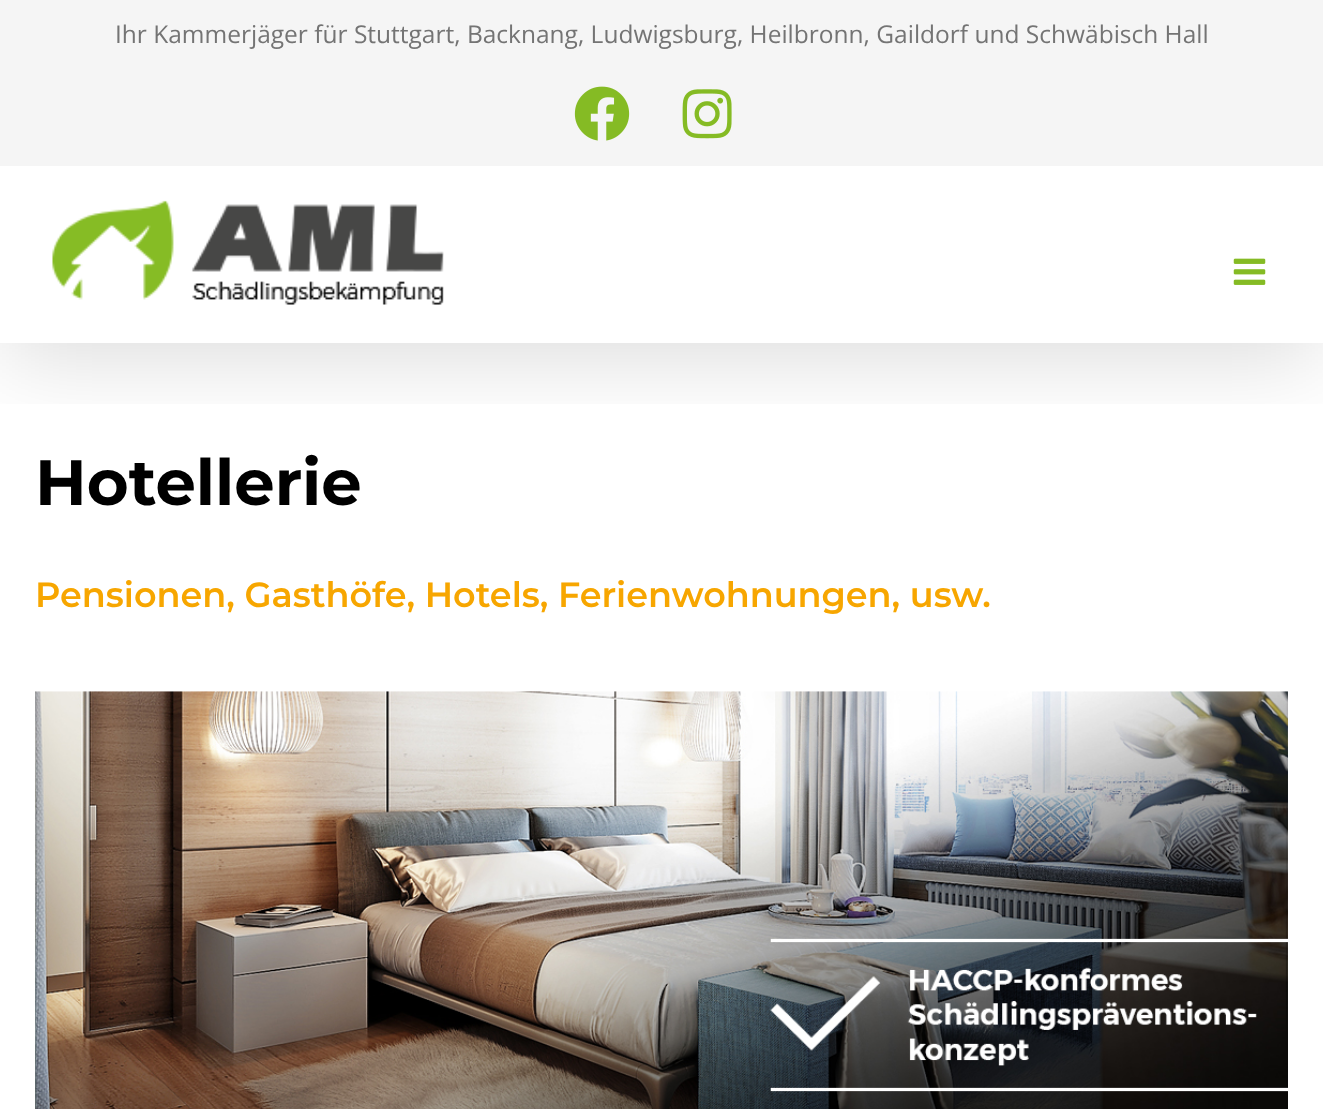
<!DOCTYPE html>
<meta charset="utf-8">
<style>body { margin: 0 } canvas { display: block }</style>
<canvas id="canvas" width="1323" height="1109"></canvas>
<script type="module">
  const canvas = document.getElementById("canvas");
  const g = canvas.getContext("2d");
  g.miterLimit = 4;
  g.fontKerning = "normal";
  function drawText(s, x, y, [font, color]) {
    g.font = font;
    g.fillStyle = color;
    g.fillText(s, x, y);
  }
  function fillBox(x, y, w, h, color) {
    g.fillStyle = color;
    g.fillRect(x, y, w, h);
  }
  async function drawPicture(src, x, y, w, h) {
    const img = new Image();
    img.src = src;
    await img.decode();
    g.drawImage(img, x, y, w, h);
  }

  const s1 = ["24.5px Open Sans", "#747474"];
  const s2 = ["bold 64px Montserrat", "#000000"];
  const s3 = ["600 35px Montserrat", "#F7A600"];

  fillBox(0, 0, 1323, 1109, "#FFFFFF");
  g.save();
  g.beginPath();
  g.rect(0, 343, 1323, 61);
  g.clip();
  g.fillStyle = "rgba(0, 0, 0, 0.14)";
  g.filter = "blur(44px)";
  g.beginPath();
  g.rect(4, 21, 1316, 336);
  g.fill();
  g.filter = "none";
  g.restore();
  fillBox(0, 0, 1323, 166, "#F5F5F5");
  drawText("Ihr Kammerjäger für Stuttgart, Backnang, Ludwigsburg, Heilbronn, Gaildorf und Schwäbisch Hall", 115, 43, s1);
  await drawPicture("pic1.png", 574, 86, 56, 55);
  await drawPicture("pic2.png", 682, 89, 50, 50);
  await drawPicture("pic3.png", 52, 200, 392, 105);
  await drawPicture("pic4.png", 1233, 258, 33, 27);
  drawText("Hotellerie", 35, 505, s2);
  drawText("Pensionen, Gasthöfe, Hotels, Ferienwohnungen, usw.", 35, 607, s3);
  await drawPicture("pic5.png", 35, 691, 1253, 418);
</script>
